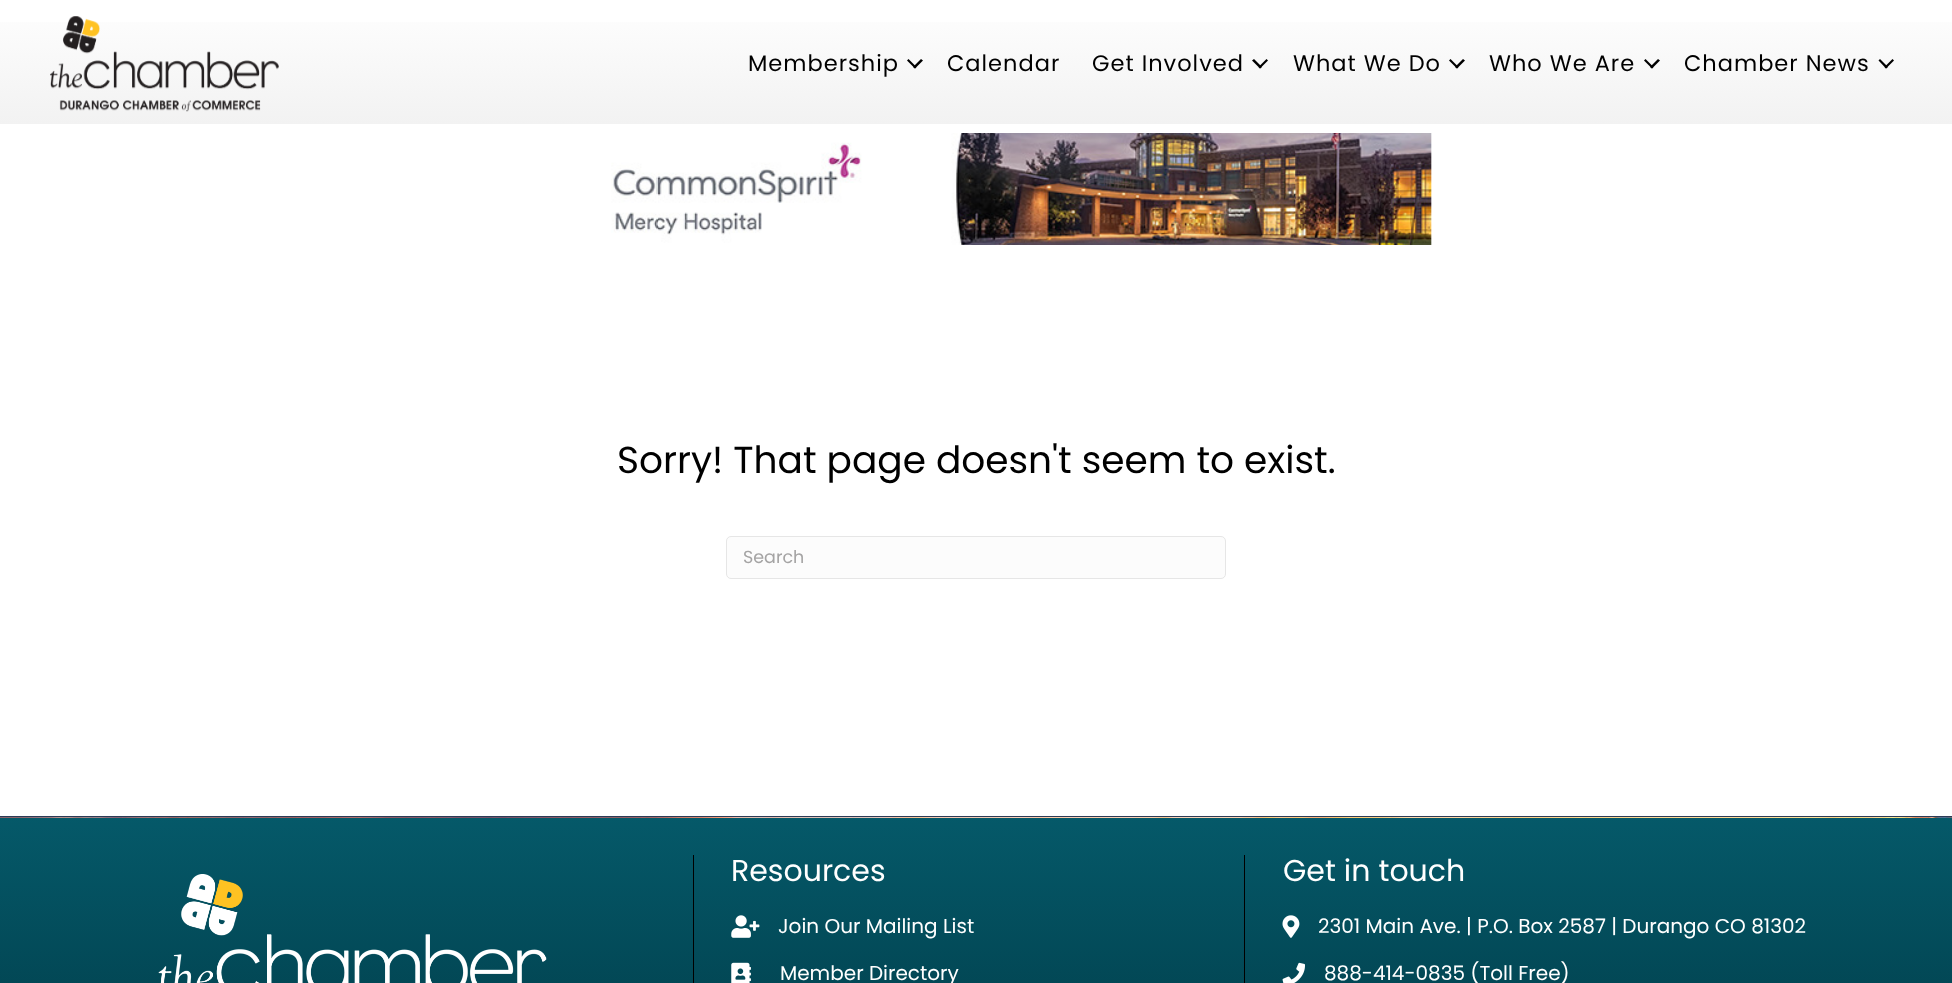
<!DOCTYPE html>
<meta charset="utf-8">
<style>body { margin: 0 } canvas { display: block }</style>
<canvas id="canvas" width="1952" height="983"></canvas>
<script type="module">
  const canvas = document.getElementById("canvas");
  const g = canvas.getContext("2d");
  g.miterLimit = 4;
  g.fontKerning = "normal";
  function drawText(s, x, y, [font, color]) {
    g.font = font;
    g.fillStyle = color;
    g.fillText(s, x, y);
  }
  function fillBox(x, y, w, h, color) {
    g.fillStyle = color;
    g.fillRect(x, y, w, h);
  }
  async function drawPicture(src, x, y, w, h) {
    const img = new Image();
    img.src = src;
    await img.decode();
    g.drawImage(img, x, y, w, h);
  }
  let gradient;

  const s1 = ["22.5px Poppins", "#000000"];
  const s2 = ["37.5px Poppins", "#000000"];
  const s3 = ["17.5px Poppins", "#A5A4A4"];
  const s4 = ["30px Poppins", "#FFFFFF"];
  const s5 = ["20px Poppins", "#FFFFFF"];

  fillBox(0, 0, 1952, 983, "#FFFFFF");
  gradient = g.createLinearGradient(976, -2.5, 976, 124);
  gradient.addColorStop(0, "#FFFFFF");
  gradient.addColorStop(1, "#F2F2F2");
  g.fillStyle = gradient;
  g.fillRect(0, 22, 1952, 102);
  await drawPicture("pic1.png", 50, 16, 229, 96);
  g.letterSpacing = "1px";
  drawText("Membership", 748, 71, s1);
  g.beginPath();
  g.moveTo(921, 59);
  g.lineTo(923, 60.5);
  g.lineTo(915, 68.5);
  g.lineTo(913, 67);
  g.closePath();
  g.fill();
  g.beginPath();
  g.moveTo(908.5, 59);
  g.lineTo(916.5, 67);
  g.lineTo(915, 68.5);
  g.lineTo(907, 60.5);
  g.closePath();
  g.fill();
  drawText("Calendar", 947, 71, s1);
  drawText("Get Involved", 1092, 71, s1);
  g.beginPath();
  g.moveTo(1266.5, 59);
  g.lineTo(1268, 60.5);
  g.lineTo(1260, 68.5);
  g.lineTo(1258.5, 67);
  g.closePath();
  g.fill();
  g.beginPath();
  g.moveTo(1254, 59);
  g.lineTo(1262, 67);
  g.lineTo(1260, 68.5);
  g.lineTo(1252, 60.5);
  g.closePath();
  g.fill();
  drawText("What We Do", 1293, 71, s1);
  g.beginPath();
  g.moveTo(1463, 59);
  g.lineTo(1465, 60.5);
  g.lineTo(1457, 68.5);
  g.lineTo(1455, 67);
  g.closePath();
  g.fill();
  g.beginPath();
  g.moveTo(1450.5, 59);
  g.lineTo(1458.5, 67);
  g.lineTo(1457, 68.5);
  g.lineTo(1449, 60.5);
  g.closePath();
  g.fill();
  drawText("Who We Are", 1489, 71, s1);
  g.beginPath();
  g.moveTo(1658, 59);
  g.lineTo(1660, 60.5);
  g.lineTo(1652, 68.5);
  g.lineTo(1650, 67);
  g.closePath();
  g.fill();
  g.beginPath();
  g.moveTo(1645.5, 59);
  g.lineTo(1653.5, 67);
  g.lineTo(1652, 68.5);
  g.lineTo(1644, 60.5);
  g.closePath();
  g.fill();
  drawText("Chamber News", 1684, 71, s1);
  g.beginPath();
  g.moveTo(1892.5, 59);
  g.lineTo(1894, 60.5);
  g.lineTo(1886, 68.5);
  g.lineTo(1884.5, 67);
  g.closePath();
  g.fill();
  g.beginPath();
  g.moveTo(1880, 59);
  g.lineTo(1888, 67);
  g.lineTo(1886, 68.5);
  g.lineTo(1878.5, 60.5);
  g.closePath();
  g.fill();
  await drawPicture("pic2.png", 611, 133, 821, 112);
  g.letterSpacing = "0px";
  drawText("Sorry! That page doesn't seem to exist.", 617, 473, s2);
  g.fillStyle = "#FCFCFC";
  g.beginPath();
  g.roundRect(726.5, 536.5, 499, 42, 4.5);
  g.fill();
  g.strokeStyle = "#E6E6E6";
  g.stroke();
  drawText("Search", 743, 563, s3);
  await drawPicture("pic3.png", 0, 817, 1952, 1);
  fillBox(0, 816, 1952, 1, "#2C3A56");
  gradient = g.createLinearGradient(976, 817, 976, 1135);
  gradient.addColorStop(0, "#055969");
  gradient.addColorStop(1, "#003844");
  g.fillStyle = gradient;
  g.fillRect(0, 818, 1952, 165);
  await drawPicture("pic4.png", 158, 874, 389, 109);
  fillBox(693, 855, 1, 128, "#000000");
  drawText("Resources", 731, 881, s4);
  await drawPicture("pic5.png", 731, 915, 29, 23);
  drawText("Join Our Mailing List", 778, 933, s5);
  await drawPicture("pic6.png", 731, 962, 20, 21);
  drawText("Member Directory", 780, 980, s5);
  fillBox(1244, 855, 1, 128, "#000000");
  drawText("Get in touch", 1283, 881, s4);
  await drawPicture("pic7.png", 1282, 915, 18, 23);
  drawText("2301 Main Ave. | P.O. Box 2587 | Durango CO 81302", 1318, 933, s5);
  await drawPicture("pic8.png", 1282, 962, 23, 21);
  drawText("888-414-0835 (Toll Free)", 1324, 980, s5);
</script>
